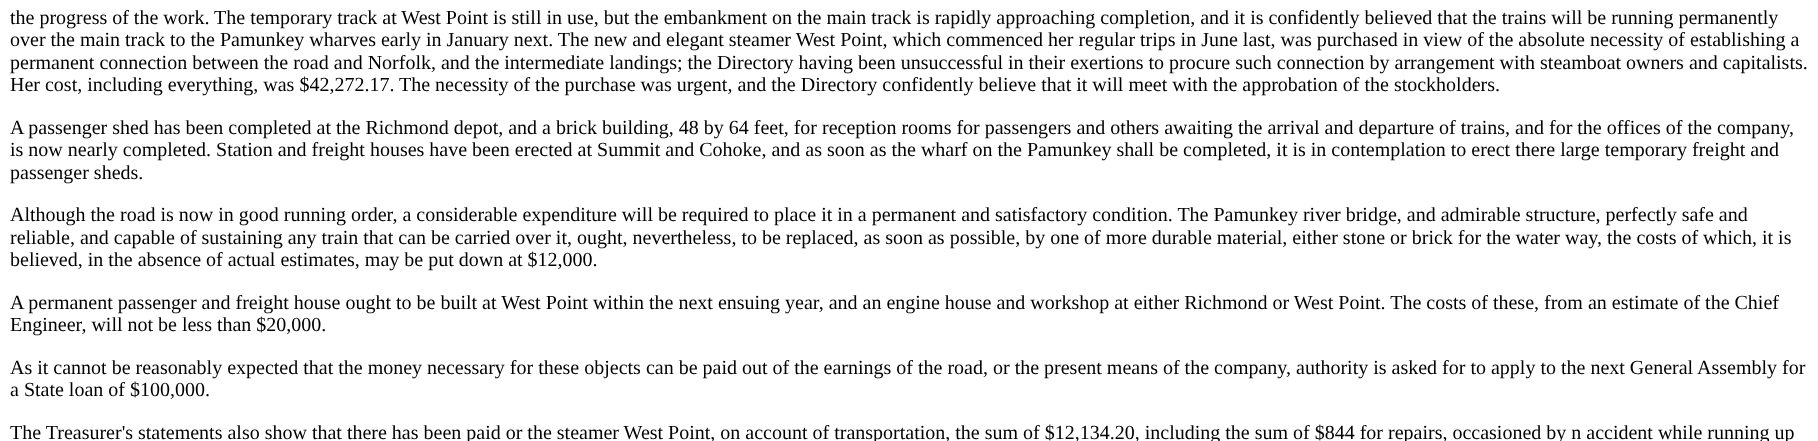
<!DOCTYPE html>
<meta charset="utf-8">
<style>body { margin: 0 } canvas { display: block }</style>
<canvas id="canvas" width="1818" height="441"></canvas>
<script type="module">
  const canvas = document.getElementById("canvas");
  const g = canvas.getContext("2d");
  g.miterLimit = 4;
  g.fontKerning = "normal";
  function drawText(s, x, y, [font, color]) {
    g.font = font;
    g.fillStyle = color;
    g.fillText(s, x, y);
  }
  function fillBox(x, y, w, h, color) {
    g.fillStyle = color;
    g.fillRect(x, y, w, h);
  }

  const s1 = ["20px Liberation Serif", "#000000"];

  fillBox(0, 0, 1818, 441, "#FFFFFF");
  drawText("the progress of the work. The temporary track at West Point is still in use, but the embankment on the main track is rapidly approaching completion, and it is confidently believed that the trains will be running permanently", 10, 24, s1);
  drawText("over the main track to the Pamunkey wharves early in January next. The new and elegant steamer West Point, which commenced her regular trips in June last, was purchased in view of the absolute necessity of establishing a", 10, 46, s1);
  drawText("permanent connection between the road and Norfolk, and the intermediate landings; the Directory having been unsuccessful in their exertions to procure such connection by arrangement with steamboat owners and capitalists.", 10, 69, s1);
  drawText("Her cost, including everything, was $42,272.17. The necessity of the purchase was urgent, and the Directory confidently believe that it will meet with the approbation of the stockholders.", 10, 91, s1);
  drawText("A passenger shed has been completed at the Richmond depot, and a brick building, 48 by 64 feet, for reception rooms for passengers and others awaiting the arrival and departure of trains, and for the offices of the company,", 10, 134, s1);
  drawText("is now nearly completed. Station and freight houses have been erected at Summit and Cohoke, and as soon as the wharf on the Pamunkey shall be completed, it is in contemplation to erect there large temporary freight and", 10, 156, s1);
  drawText("passenger sheds.", 10, 179, s1);
  drawText("Although the road is now in good running order, a considerable expenditure will be required to place it in a permanent and satisfactory condition. The Pamunkey river bridge, and admirable structure, perfectly safe and", 10, 221, s1);
  drawText("reliable, and capable of sustaining any train that can be carried over it, ought, nevertheless, to be replaced, as soon as possible, by one of more durable material, either stone or brick for the water way, the costs of which, it is", 10, 244, s1);
  drawText("believed, in the absence of actual estimates, may be put down at $12,000.", 10, 266, s1);
  drawText("A permanent passenger and freight house ought to be built at West Point within the next ensuing year, and an engine house and workshop at either Richmond or West Point. The costs of these, from an estimate of the Chief", 10, 309, s1);
  drawText("Engineer, will not be less than $20,000.", 10, 331, s1);
  drawText("As it cannot be reasonably expected that the money necessary for these objects can be paid out of the earnings of the road, or the present means of the company, authority is asked for to apply to the next General Assembly for", 10, 374, s1);
  drawText("a State loan of $100,000.", 10, 396, s1);
  drawText("The Treasurer's statements also show that there has been paid or the steamer West Point, on account of transportation, the sum of $12,134.20, including the sum of $844 for repairs, occasioned by n accident while running up", 10, 439, s1);
</script>
